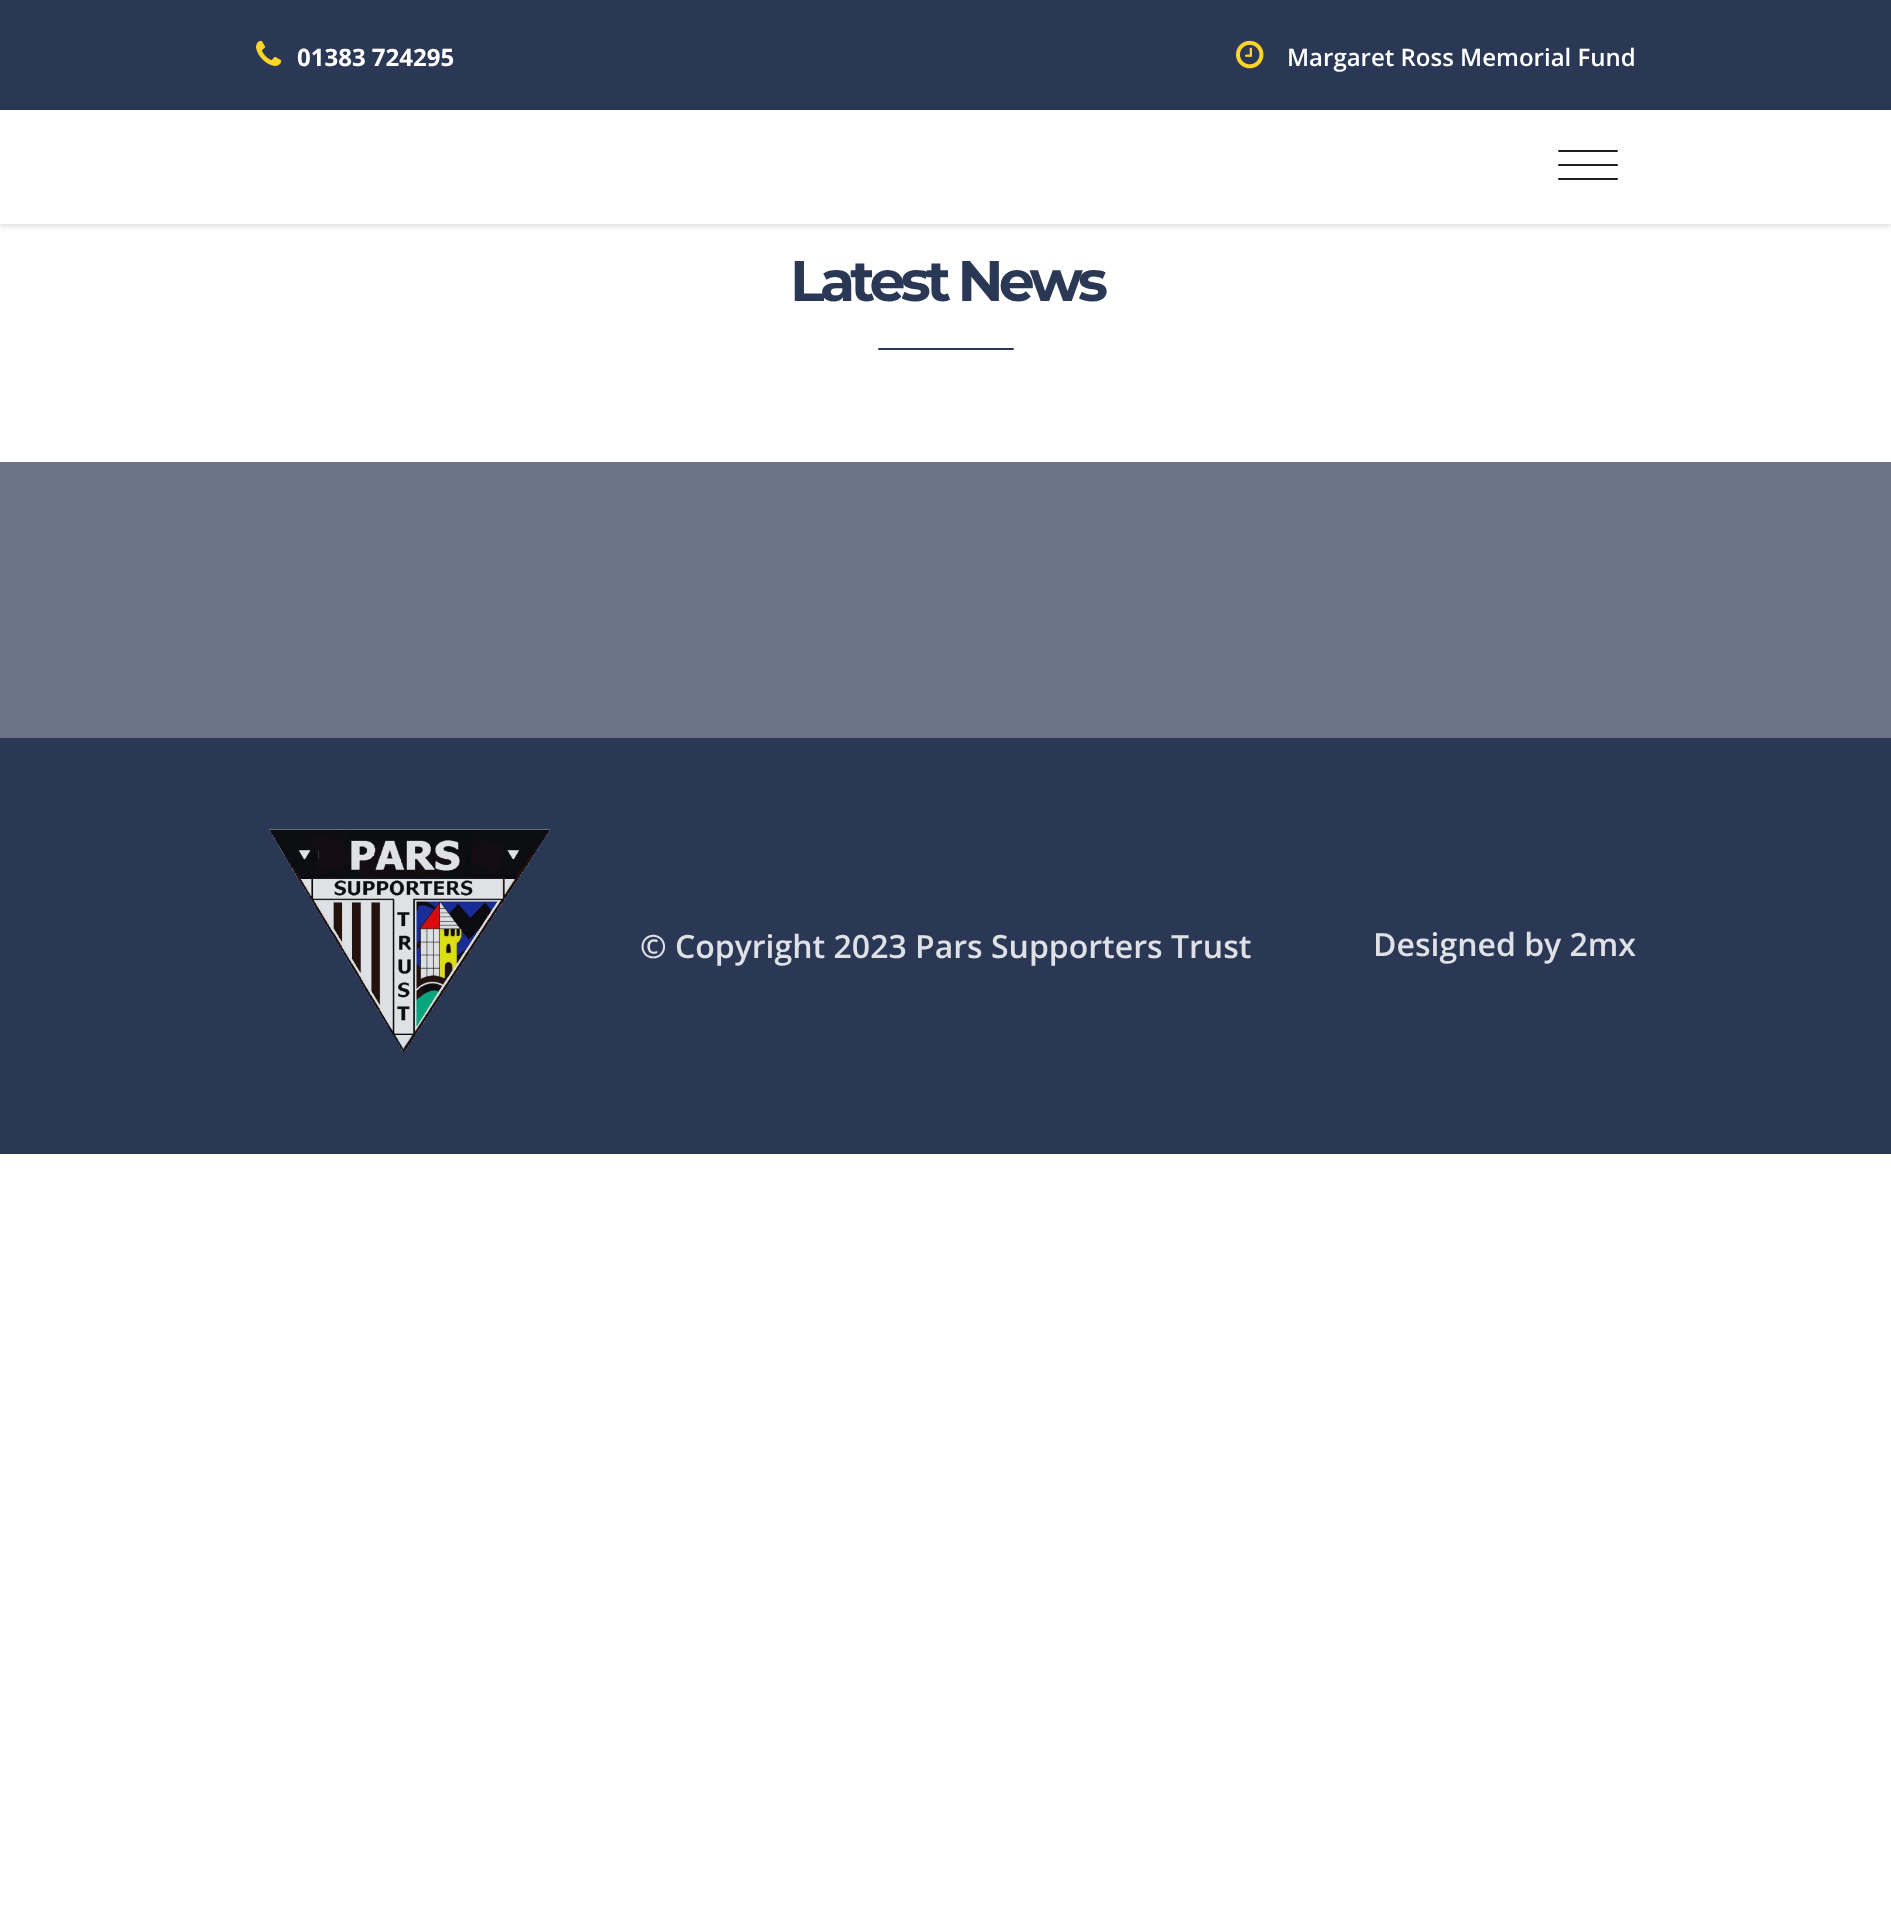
<!DOCTYPE html>
<meta charset="utf-8">
<style>body { margin: 0 } canvas { display: block }</style>
<canvas id="canvas" width="1891" height="1916"></canvas>
<script type="module">
  const canvas = document.getElementById("canvas");
  const g = canvas.getContext("2d");
  g.miterLimit = 4;
  g.fontKerning = "normal";
  function drawText(s, x, y, [font, color]) {
    g.font = font;
    g.fillStyle = color;
    g.fillText(s, x, y);
  }
  function fillBox(x, y, w, h, color) {
    g.fillStyle = color;
    g.fillRect(x, y, w, h);
  }
  function fillRounded(x, y, w, h, r, color) {
    g.fillStyle = color;
    g.beginPath();
    g.roundRect(x, y, w, h, r);
    g.fill();
  }
  async function drawPicture(src, x, y, w, h) {
    const img = new Image();
    img.src = src;
    await img.decode();
    g.drawImage(img, x, y, w, h);
  }

  const s1 = ["bold 24px Open Sans", "#FFFFFF"];
  const s2 = ["600 24px Open Sans", "#FFFFFF"];
  const s3 = ["bold 57px Montserrat", "#2A3855"];
  const s4 = ["600 32px Open Sans", "#DFE1E6"];

  fillBox(0, 0, 1891, 1916, "#FFFFFF");
  fillBox(0, 0, 1891, 110, "#2A3855");
  await drawPicture("pic1.png", 256, 40, 26, 26);
  drawText("01383 724295", 297, 66, s1);
  await drawPicture("pic2.png", 1236, 40, 28, 29);
  drawText("Margaret Ross Memorial Fund", 1287, 66, s2);
  g.save();
  g.beginPath();
  g.moveTo(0, 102);
  g.lineTo(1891, 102);
  g.lineTo(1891, 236);
  g.lineTo(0, 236);
  g.closePath();
  g.moveTo(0, 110);
  g.lineTo(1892, 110);
  g.lineTo(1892, 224);
  g.lineTo(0, 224);
  g.closePath();
  g.clip("evenodd");
  g.fillStyle = "rgba(0, 0, 0, 0.15)";
  g.filter = "blur(3px)";
  g.beginPath();
  g.rect(0, 112, 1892, 114);
  g.fill();
  g.filter = "none";
  g.restore();
  fillRounded(1558, 164, 60, 2, 1, "#1F1F1F");
  fillRounded(1558, 150, 60, 2, 1, "#1F1F1F");
  fillRounded(1558, 178, 60, 2, 1, "#1F1F1F");
  g.letterSpacing = "-4.75px";
  drawText("Latest News", 790, 301, s3);
  fillRounded(878, 348, 136, 2, 1, "#2A3855");
  fillBox(0, 462, 1891, 276, "#6C7488");
  fillBox(0, 738, 1891, 416, "#2A3855");
  await drawPicture("pic3.png", 269, 829, 281, 224);
  g.letterSpacing = "0px";
  drawText("© Copyright 2023 Pars Supporters Trust", 640, 958, s4);
  drawText("Designed by 2mx", 1373, 956, s4);
</script>
